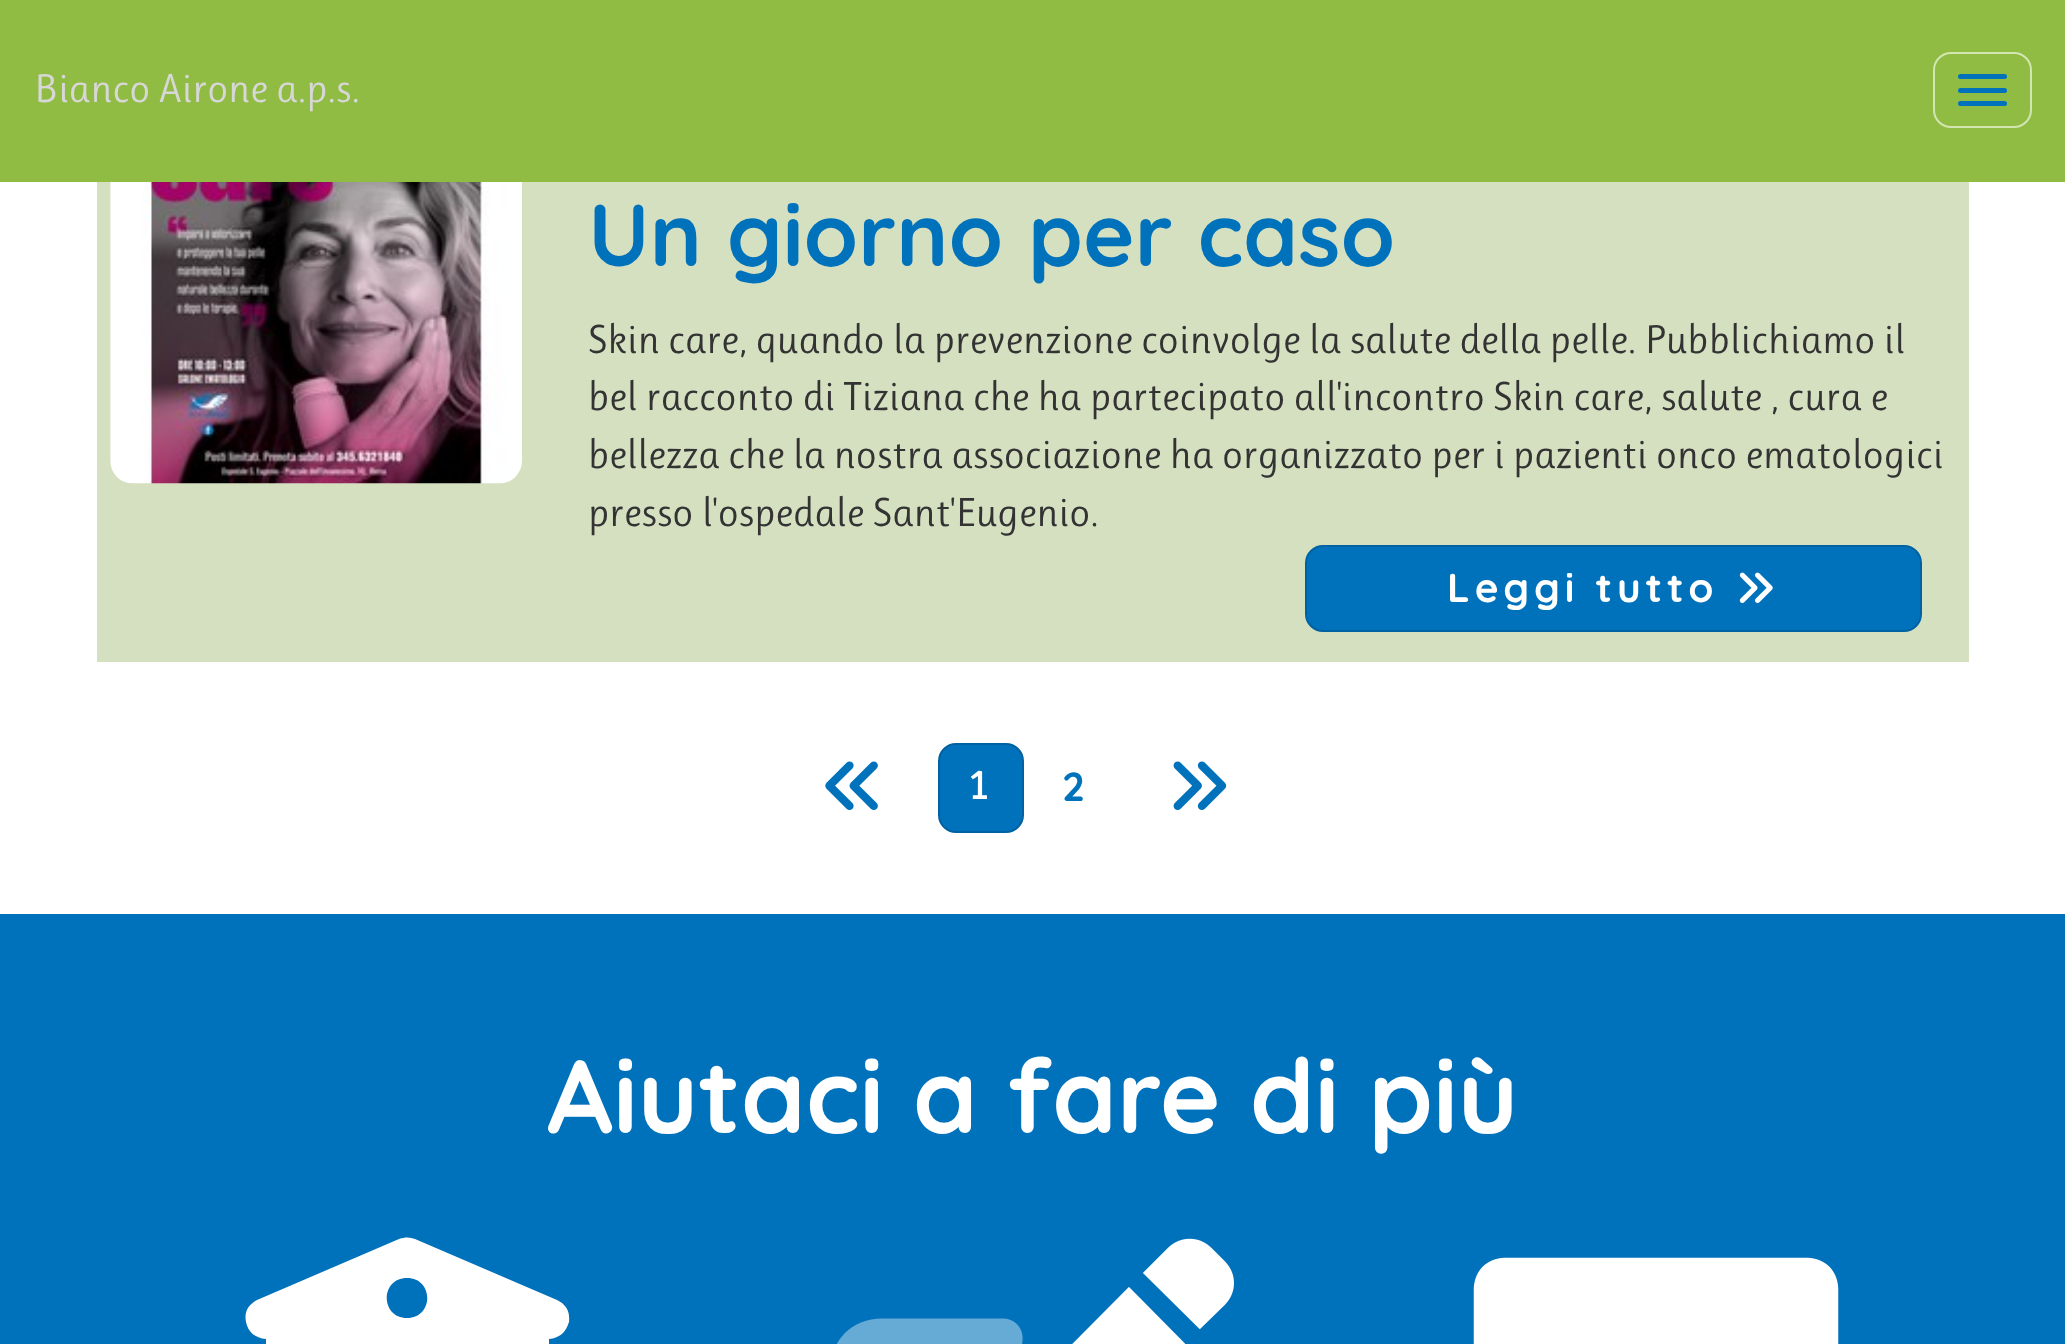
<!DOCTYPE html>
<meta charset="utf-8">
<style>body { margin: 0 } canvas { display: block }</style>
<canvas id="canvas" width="2065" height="1344"></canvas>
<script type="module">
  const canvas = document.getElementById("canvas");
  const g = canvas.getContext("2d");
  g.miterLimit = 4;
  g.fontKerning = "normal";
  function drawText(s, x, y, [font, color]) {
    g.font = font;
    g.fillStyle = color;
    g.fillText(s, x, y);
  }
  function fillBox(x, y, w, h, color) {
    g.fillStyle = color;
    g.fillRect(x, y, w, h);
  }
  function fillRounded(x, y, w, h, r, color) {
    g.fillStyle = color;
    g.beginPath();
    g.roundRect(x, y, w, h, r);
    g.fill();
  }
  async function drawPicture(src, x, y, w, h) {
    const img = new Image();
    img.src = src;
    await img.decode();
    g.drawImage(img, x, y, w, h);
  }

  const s1 = ["40.5px Ruluko", "#D7D7D7"];
  const s2 = ["bold 87.75px Quicksand", "#0072BB"];
  const s3 = ["40.5px Ruluko", "#333333"];
  const s4 = ["bold 40.5px Quicksand", "#FFFFFF"];
  const s5 = ["bold 40.5px Ruluko", "#FFFFFF"];
  const s6 = ["bold 40.5px Quicksand", "#0072BB"];
  const s7 = ["bold 103.5px Quicksand", "#FFFFFF"];

  fillBox(0, 0, 2065, 1344, "#FFFFFF");
  fillBox(0, 0, 2065, 182, "#90BC43");
  drawText("Bianco Airone a.p.s.", 34, 102, s1);
  g.beginPath();
  g.roundRect(1934, 53, 97, 74, 17);
  g.strokeStyle = "#D3E5B0";
  g.lineWidth = 2;
  g.stroke();
  fillRounded(1958, 74, 49, 5, 2.5, "#0072BB");
  fillRounded(1958, 88, 49, 5, 2.5, "#0072BB");
  fillRounded(1958, 101, 49, 5, 2.5, "#0072BB");
  fillBox(97, 182, 1872, 480, "#D5E0C0");
  await drawPicture("pic1.png", 110, 182, 412, 302);
  drawText("Un giorno per caso", 588, 266, s2);
  drawText("Skin care, quando la prevenzione coinvolge la salute della pelle. Pubblichiamo il", 588, 353, s3);
  drawText("bel racconto di Tiziana che ha partecipato all'incontro Skin care, salute , cura e", 588, 410, s3);
  drawText("bellezza che la nostra associazione ha organizzato per i pazienti onco ematologici", 588, 468, s3);
  drawText("presso l'ospedale Sant'Eugenio.", 588, 526, s3);
  g.fillStyle = "#0072BB";
  g.beginPath();
  g.roundRect(1306, 546, 615, 85, 17);
  g.fill();
  g.strokeStyle = "#0062A2";
  g.stroke();
  g.letterSpacing = "4.9px";
  drawText("Leggi tutto", 1447, 602, s4);
  await drawPicture("pic2.png", 1739, 572, 34, 31);
  await drawPicture("pic3.png", 825, 761, 53, 49);
  g.fillStyle = "#0072BB";
  g.beginPath();
  g.roundRect(939, 744, 84, 88, 17);
  g.fill();
  g.stroke();
  drawText("1", 967, 799, s5);
  drawText("2", 1062, 801, s6);
  await drawPicture("pic4.png", 1173, 761, 54, 49);
  fillBox(0, 914, 2065, 430, "#0072BB");
  g.letterSpacing = "0px";
  drawText("Aiutaci a fare di più", 547, 1133, s7);
  g.beginPath();
  g.moveTo(415, 1239);
  g.bezierCurveTo(410, 1237, 405, 1237, 399, 1239);
  g.lineTo(257, 1300);
  g.bezierCurveTo(248, 1305, 244, 1312, 246, 1322);
  g.bezierCurveTo(248, 1332, 255, 1338, 266, 1339);
  g.lineTo(266, 1344);
  g.bezierCurveTo(266, 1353, 271, 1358, 281, 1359);
  g.lineTo(534, 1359);
  g.bezierCurveTo(543, 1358, 548, 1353, 549, 1344);
  g.lineTo(549, 1339);
  g.bezierCurveTo(560, 1338, 566, 1332, 569, 1322);
  g.bezierCurveTo(570, 1312, 567, 1305, 557, 1300);
  g.closePath();
  g.moveTo(407, 1278);
  g.bezierCurveTo(434, 1278, 434, 1318, 407, 1318);
  g.bezierCurveTo(380, 1318, 380, 1278, 407, 1278);
  g.closePath();
  g.fill();
  await drawPicture("pic5.png", 837, 1318, 186, 26);
  await drawPicture("pic6.png", 1072, 1238, 162, 106);
  await drawPicture("pic7.png", 1473, 1257, 366, 87);
</script>
